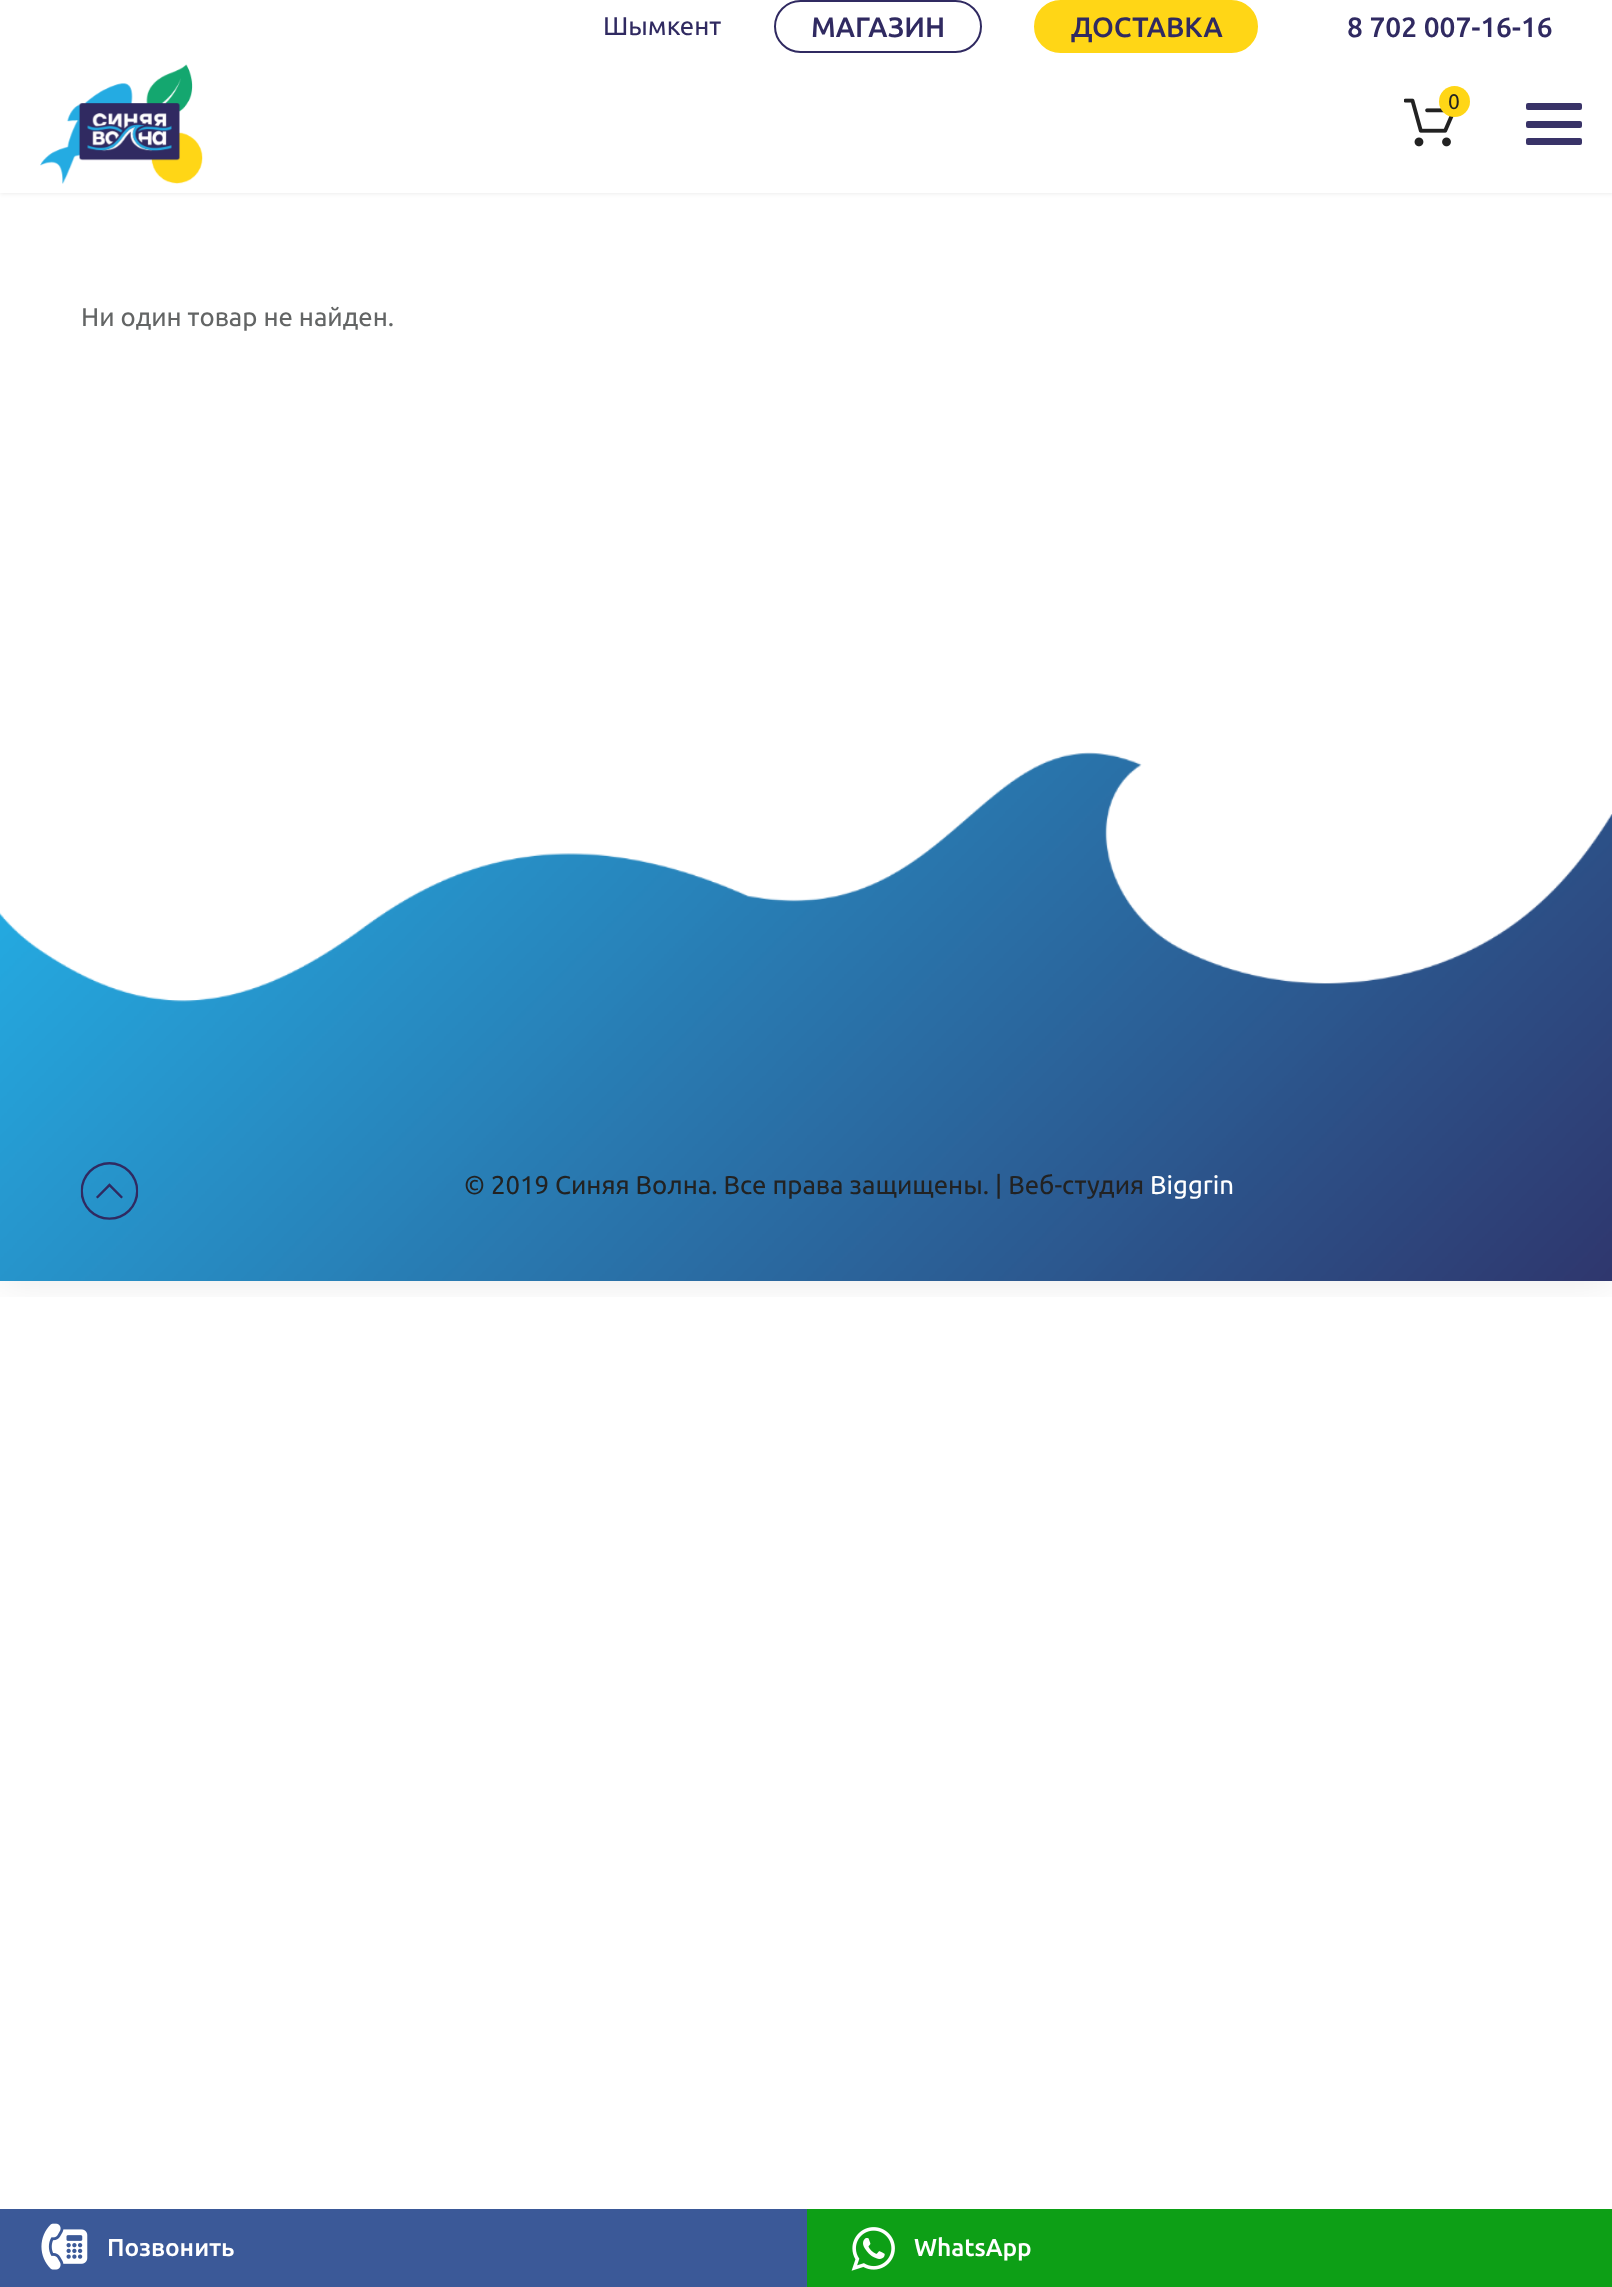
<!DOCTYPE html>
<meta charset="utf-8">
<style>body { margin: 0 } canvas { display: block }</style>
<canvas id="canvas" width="1612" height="2287"></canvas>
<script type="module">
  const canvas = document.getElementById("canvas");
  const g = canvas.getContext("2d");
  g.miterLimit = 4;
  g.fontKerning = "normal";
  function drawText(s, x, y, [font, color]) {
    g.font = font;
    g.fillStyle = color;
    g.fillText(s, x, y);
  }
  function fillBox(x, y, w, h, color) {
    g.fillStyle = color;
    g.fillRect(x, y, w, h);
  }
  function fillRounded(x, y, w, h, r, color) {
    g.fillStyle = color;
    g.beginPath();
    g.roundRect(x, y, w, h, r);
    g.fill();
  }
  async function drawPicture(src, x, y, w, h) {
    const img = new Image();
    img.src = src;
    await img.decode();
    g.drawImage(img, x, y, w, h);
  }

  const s1 = ["25.75px Ubuntu", "#302A61"];
  const s2 = ["500 28px Ubuntu", "#302A61"];
  const s3 = ["21px Ubuntu", "#222222"];
  const s4 = ["25.75px Ubuntu", "#636565"];
  const s5 = ["25.75px Ubuntu", "#222222"];
  const s6 = ["25.75px Ubuntu", "#FFFFFF"];
  const s7 = ["500 24.5px Ubuntu", "#FFFFFF"];

  fillBox(0, 0, 1612, 2287, "#FFFFFF");
  g.save();
  g.beginPath();
  g.rect(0, 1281, 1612, 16);
  g.clip();
  g.fillStyle = "rgba(0, 0, 0, 0.09)";
  g.filter = "blur(21px)";
  g.beginPath();
  g.rect(0, 0, 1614, 1281);
  g.fill();
  g.filter = "none";
  g.restore();
  g.fillStyle = "rgba(0, 0, 0, 0.1)";
  g.filter = "blur(2.5px)";
  g.beginPath();
  g.rect(0, 0, 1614, 193);
  g.fill();
  g.filter = "none";
  fillBox(0, 0, 1612, 193, "#FFFFFF");
  drawText("Шымкент", 603, 35, s1);
  g.beginPath();
  g.roundRect(775, 1, 206, 51, 25.5);
  g.strokeStyle = "#302A61";
  g.lineWidth = 2;
  g.stroke();
  drawText("МАГАЗИН", 811, 37, s2);
  g.fillStyle = "#FFD616";
  g.beginPath();
  g.roundRect(1035, 1, 222, 51, 25.5);
  g.fill();
  g.strokeStyle = "#FFD616";
  g.stroke();
  drawText("ДОСТАВКА", 1071, 37, s2);
  drawText("8 702 007-16-16", 1347, 37, s2);
  await drawPicture("pic1.png", 1404, 98, 50, 49);
  g.fillStyle = "#FFD616";
  g.beginPath();
  g.arc(1454.5, 101.5, 15.5, 0, Math.PI * 2);
  g.fill();
  drawText("0", 1448, 109, s3);
  await drawPicture("pic2.png", 40, 64, 163, 120);
  fillRounded(1526, 121, 56, 7, 2, "#393368");
  fillRounded(1526, 103, 56, 7, 2, "#393368");
  fillRounded(1526, 138, 56, 7, 2, "#393368");
  drawText("Ни один товар не найден.", 81, 326, s4);
  await drawPicture("pic3.png", 0, 752, 1612, 529);
  await drawPicture("pic4.png", 80, 1162, 59, 58);
  drawText("© 2019 Синяя Волна. Все права защищены. | Веб-студия", 464, 1194, s5);
  drawText("Biggrin", 1150, 1194, s6);
  fillBox(0, 2209, 807, 78, "#3B5998");
  fillBox(807, 2209, 805, 78, "#0D9F16");
  await drawPicture("pic5.png", 41, 2223, 47, 47);
  drawText("Позвонить", 107, 2256, s7);
  await drawPicture("pic6.png", 851, 2227, 44, 44);
  drawText("WhatsApp", 914, 2256, s7);
</script>
